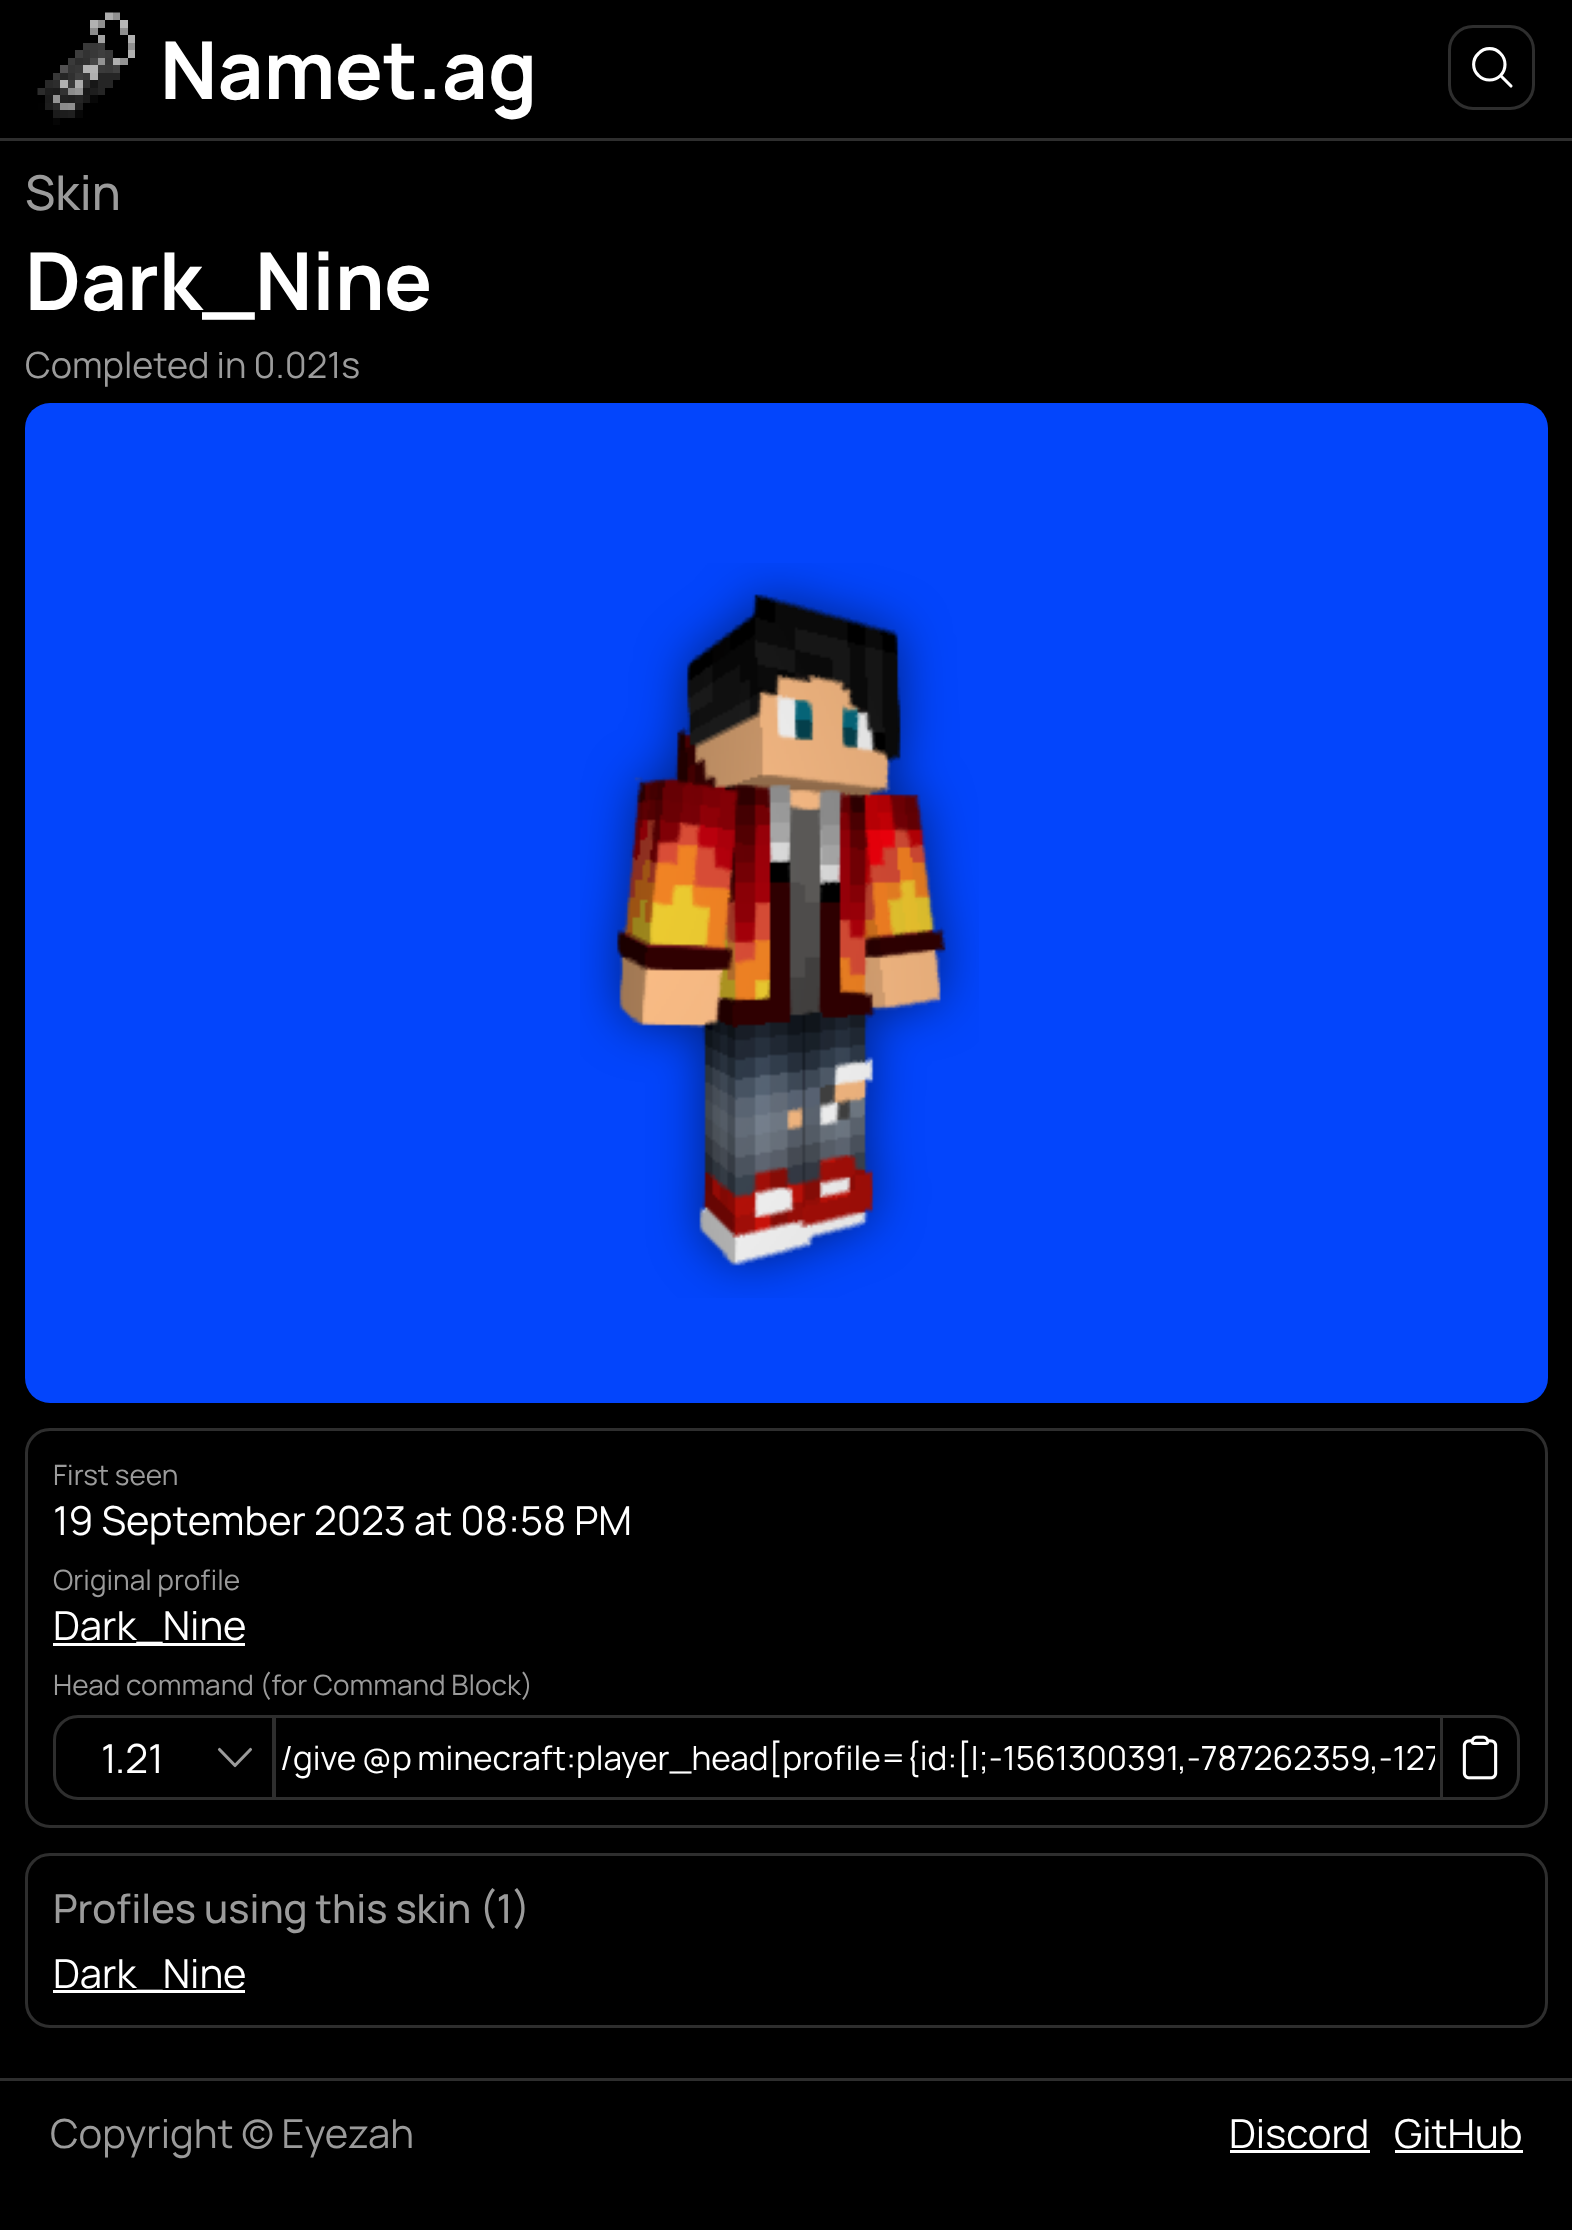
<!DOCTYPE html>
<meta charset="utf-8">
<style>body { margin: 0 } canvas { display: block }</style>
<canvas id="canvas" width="1572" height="2230"></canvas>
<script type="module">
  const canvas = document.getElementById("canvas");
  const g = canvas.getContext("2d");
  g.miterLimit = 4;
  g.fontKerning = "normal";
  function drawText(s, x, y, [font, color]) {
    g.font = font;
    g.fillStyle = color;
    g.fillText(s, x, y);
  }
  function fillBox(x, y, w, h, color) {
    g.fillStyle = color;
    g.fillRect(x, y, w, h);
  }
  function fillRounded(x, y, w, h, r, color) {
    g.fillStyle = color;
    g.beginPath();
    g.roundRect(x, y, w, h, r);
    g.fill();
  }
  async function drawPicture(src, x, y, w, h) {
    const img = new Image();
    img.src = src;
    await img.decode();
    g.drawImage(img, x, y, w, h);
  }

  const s1 = ["bold 80px Manrope", "#FFFFFF"];
  const s2 = ["500 48px Manrope", "#9B9B9B"];
  const s3 = ["36px Manrope", "#9B9B9B"];
  const s4 = ["28px Manrope", "#9B9B9B"];
  const s5 = ["40px Manrope", "#FFFFFF"];
  const s6 = ["33.35px Manrope", "#FFFFFF"];
  const s7 = ["500 40px Manrope", "#9B9B9B"];
  const s8 = ["40px Manrope", "#9B9B9B"];

  fillBox(0, 0, 1572, 2230, "#000000");
  fillBox(0, 138, 1572, 3, "#2E2E2E");
  await drawPicture("pic1.png", 37, 12, 98, 113);
  drawText("Namet.ag", 160, 99, s1);
  g.beginPath();
  g.roundRect(1449.5, 26.5, 84, 82, 23.5);
  g.strokeStyle = "#2E2E2E";
  g.lineWidth = 3;
  g.stroke();
  g.beginPath();
  g.moveTo(1511, 86);
  g.lineTo(1500.5, 75.5);
  g.moveTo(1500.5, 75.5);
  g.bezierCurveTo(1506.5, 69.5, 1506.5, 59.5, 1500.5, 53.5);
  g.bezierCurveTo(1494.5, 47, 1484.5, 47, 1478.5, 53.5);
  g.bezierCurveTo(1472, 59.5, 1472, 69.5, 1478.5, 75.5);
  g.bezierCurveTo(1484.5, 81.5, 1494.5, 81.5, 1500.5, 75.5);
  g.closePath();
  g.strokeStyle = "#FFFFFF";
  g.lineWidth = 3.1;
  g.lineCap = "round";
  g.lineJoin = "round";
  g.stroke();
  drawText("Skin", 25, 210, s2);
  drawText("Dark_Nine", 25, 310, s1);
  drawText("Completed in 0.021s", 25, 378, s3);
  fillRounded(25, 403, 1523, 1000, 25, "#0345FC");
  await drawPicture("pic2.png", 580, 563, 399, 735);
  g.beginPath();
  g.roundRect(26.5, 1429.5, 1520, 397, 23.5);
  g.strokeStyle = "#2E2E2E";
  g.lineWidth = 3;
  g.lineJoin = "miter";
  g.stroke();
  drawText("First seen", 53, 1485, s4);
  drawText("19 September 2023 at 08:58 PM", 53, 1535, s5);
  drawText("Original profile", 53, 1590, s4);
  fillBox(53, 1643, 192, 3, "#FFFFFF");
  drawText("Dark_Nine", 53, 1640, s5);
  drawText("Head command (for Command Block)", 53, 1695, s4);
  g.beginPath();
  g.roundRect(54.5, 1716.5, 219, 82, [23.5, 0, 0, 23.5]);
  g.stroke();
  drawText("1.21", 101, 1773, s5);
  g.beginPath();
  g.moveTo(250.5, 1749.5);
  g.lineTo(235, 1765.5);
  g.lineTo(219.5, 1749.5);
  g.strokeStyle = "#9B9B9B";
  g.lineWidth = 3.1;
  g.lineJoin = "round";
  g.stroke();
  g.strokeStyle = "#2E2E2E";
  g.lineWidth = 3;
  g.lineJoin = "miter";
  g.strokeRect(274.5, 1716.5, 1167, 82);
  g.save();
  g.beginPath();
  g.rect(280, 1735, 1155, 45);
  g.clip();
  g.wordSpacing = "-1px";
  drawText("/give @p minecraft:player_head[profile={id:[I;-1561300391,-787262359,-127", 280, 1770, s6);
  g.restore();
  g.fillStyle = "#000000";
  g.beginPath();
  g.roundRect(1441.5, 1716.5, 77, 82, [0, 23.5, 23.5, 0]);
  g.fill();
  g.stroke();
  await drawPicture("pic3.png", 1462, 1735, 36, 45);
  g.beginPath();
  g.roundRect(26.5, 1854.5, 1520, 172, 23.5);
  g.stroke();
  drawText("Profiles using this skin (1)", 53, 1923, s7);
  fillBox(53, 1990, 192, 3, "#FFFFFF");
  drawText("Dark_Nine", 53, 1988, s5);
  fillBox(0, 2078, 1572, 3, "#2E2E2E");
  drawText("Copyright © Eyezah", 50, 2148, s8);
  drawText("Discord", 1229, 2148, s5);
  fillBox(1230, 2150, 140, 3, "#FFFFFF");
  drawText("GitHub", 1394, 2148, s5);
  fillBox(1395, 2150, 128, 3, "#FFFFFF");
</script>
